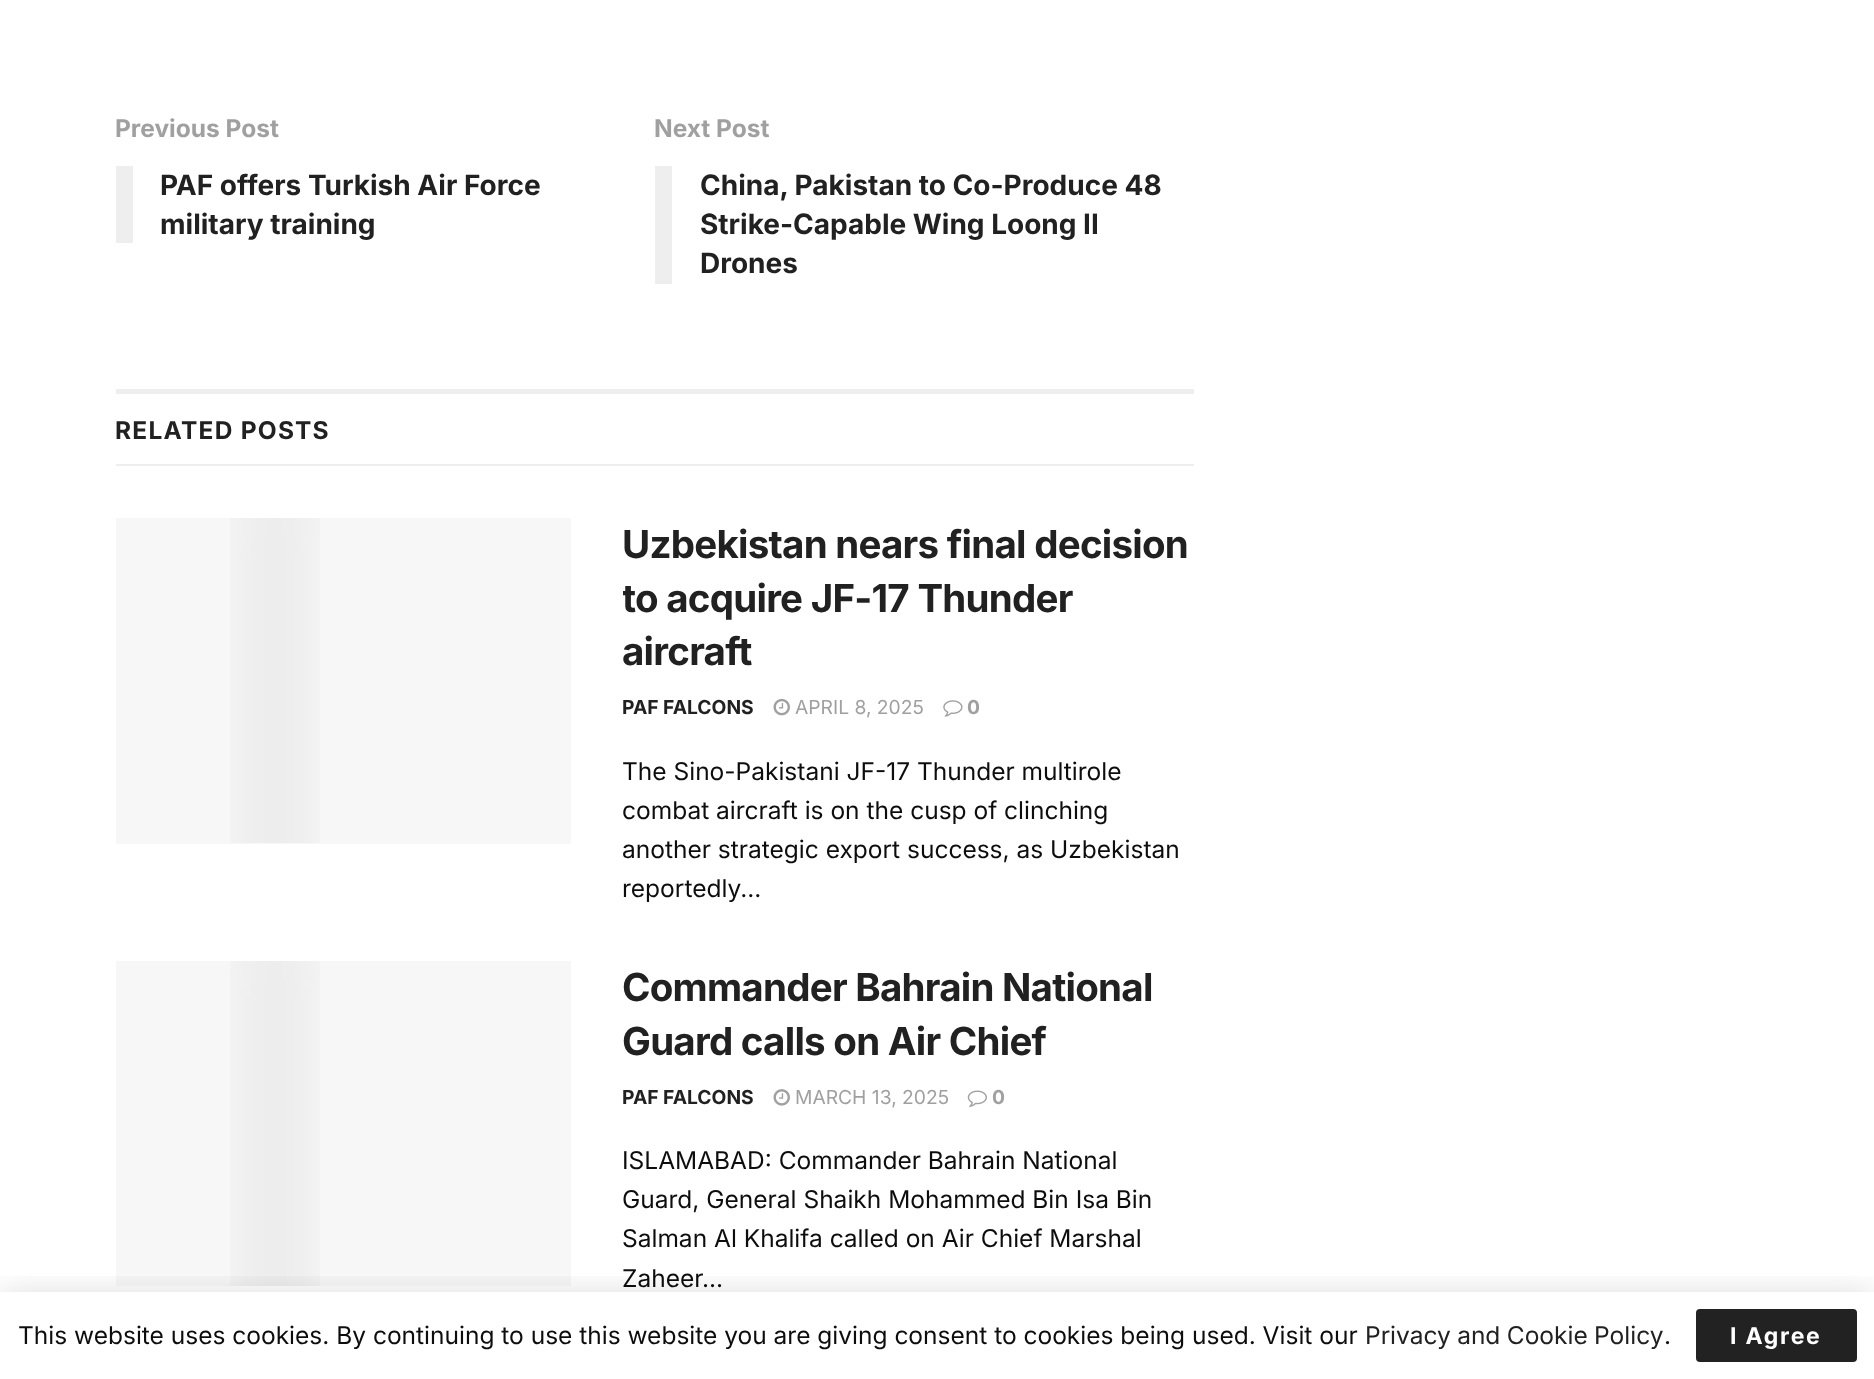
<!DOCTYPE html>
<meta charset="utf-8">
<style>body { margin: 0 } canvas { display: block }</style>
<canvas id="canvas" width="1874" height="1379"></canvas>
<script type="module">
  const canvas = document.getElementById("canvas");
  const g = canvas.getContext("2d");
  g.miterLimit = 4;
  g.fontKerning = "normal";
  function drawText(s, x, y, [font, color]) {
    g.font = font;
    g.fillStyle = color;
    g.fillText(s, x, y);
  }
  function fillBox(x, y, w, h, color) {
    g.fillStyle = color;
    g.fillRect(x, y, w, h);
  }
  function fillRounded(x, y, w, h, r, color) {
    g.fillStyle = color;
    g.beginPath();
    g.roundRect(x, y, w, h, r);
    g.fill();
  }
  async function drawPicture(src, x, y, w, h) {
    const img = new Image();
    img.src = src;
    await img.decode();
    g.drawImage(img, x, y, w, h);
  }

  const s1 = ["bold 24.5px Inter", "#A0A0A0"];
  const s2 = ["bold 28px Inter", "#212121"];
  const s3 = ["bold 24.5px Inter", "#212121"];
  const s4 = ["bold 38.5px Inter", "#212121"];
  const s5 = ["bold 19.25px Inter", "#212121"];
  const s6 = ["19.25px Inter", "#A0A0A0"];
  const s7 = ["bold 19.25px Inter", "#A0A0A0"];
  const s8 = ["24.5px Inter", "#0D0D0D"];
  const s9 = ["24.5px Inter", "#212121"];
  const s10 = ["bold 23px Inter", "#FFFFFF"];

  fillBox(0, 0, 1874, 1379, "#FFFFFF");
  drawText("Previous Post", 115, 137, s1);
  fillBox(116, 166, 17, 77, "#EEEEEE");
  drawText("PAF offers Turkish Air Force", 160, 195, s2);
  drawText("military training", 160, 234, s2);
  drawText("Next Post", 654, 137, s1);
  fillBox(655, 166, 17, 118, "#EEEEEE");
  drawText("China, Pakistan to Co-Produce 48", 700, 195, s2);
  drawText("Strike-Capable Wing Loong II", 700, 234, s2);
  drawText("Drones", 700, 273, s2);
  fillBox(116, 389, 1078, 5, "#EEEEEE");
  fillBox(116, 464, 1078, 2, "#EEEEEE");
  g.letterSpacing = "1.25px";
  drawText("RELATED POSTS", 115, 439, s3);
  fillBox(116, 518, 455, 326, "#F7F7F7");
  await drawPicture("pic1.png", 230, 518, 90, 325);
  g.letterSpacing = "-0.75px";
  drawText("Uzbekistan nears final decision", 622, 558, s4);
  g.save();
  g.beginPath();
  g.rect(623, 518, 571, 390);
  g.clip();
  drawText("to acquire JF-17 Thunder", 622, 612, s4);
  g.restore();
  drawText("aircraft", 622, 665, s4);
  g.letterSpacing = "0px";
  drawText("PAF FALCONS", 622, 714, s5);
  await drawPicture("pic2.png", 773, 698, 17, 18);
  drawText("APRIL 8, 2025", 795, 714, s6);
  await drawPicture("pic3.png", 943, 700, 20, 17);
  drawText("0", 967, 714, s7);
  drawText("The Sino-Pakistani JF-17 Thunder multirole", 622, 780, s8);
  drawText("combat aircraft is on the cusp of clinching", 622, 819, s8);
  drawText("another strategic export success, as Uzbekistan", 622, 858, s8);
  drawText("reportedly...", 622, 897, s8);
  fillBox(116, 961, 455, 325, "#F7F7F7");
  await drawPicture("pic4.png", 230, 961, 90, 325);
  g.letterSpacing = "-0.75px";
  drawText("Commander Bahrain National", 622, 1001, s4);
  drawText("Guard calls on Air Chief", 622, 1055, s4);
  g.letterSpacing = "0px";
  drawText("PAF FALCONS", 622, 1104, s5);
  await drawPicture("pic5.png", 773, 1089, 17, 17);
  drawText("MARCH 13, 2025", 795, 1104, s6);
  await drawPicture("pic6.png", 967, 1090, 20, 17);
  drawText("0", 992, 1104, s7);
  drawText("ISLAMABAD: Commander Bahrain National", 622, 1169, s8);
  drawText("Guard, General Shaikh Mohammed Bin Isa Bin", 622, 1208, s8);
  drawText("Salman Al Khalifa called on Air Chief Marshal", 622, 1247, s8);
  drawText("Zaheer...", 622, 1287, s8);
  g.save();
  g.beginPath();
  g.rect(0, 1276, 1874, 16);
  g.clip();
  g.fillStyle = "rgba(0, 0, 0, 0.15)";
  g.filter = "blur(17.5px)";
  g.beginPath();
  g.rect(0, 1295, 1874, 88);
  g.fill();
  g.filter = "none";
  g.restore();
  drawText("This website uses cookies. By continuing to use this website you are giving consent to cookies being used. Visit our", 18, 1344, s8);
  g.wordSpacing = "-0.5px";
  drawText("Privacy and Cookie Policy", 1365, 1344, s9);
  g.wordSpacing = "0px";
  drawText(".", 1664, 1344, s8);
  fillRounded(1696, 1309, 161, 53, 4, "#222222");
  g.letterSpacing = "1.75px";
  drawText("I Agree", 1730, 1344, s10);
</script>
